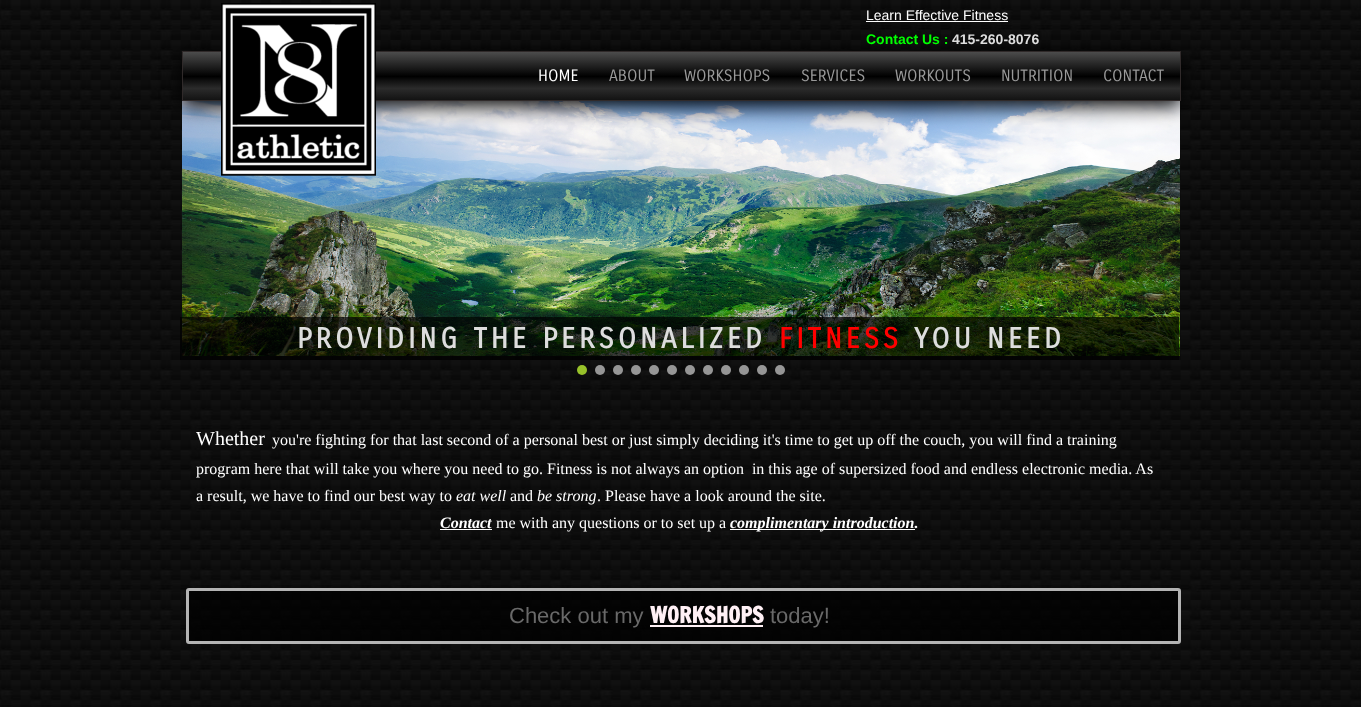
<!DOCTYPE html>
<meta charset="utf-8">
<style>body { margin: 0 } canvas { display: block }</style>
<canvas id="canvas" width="1361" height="707"></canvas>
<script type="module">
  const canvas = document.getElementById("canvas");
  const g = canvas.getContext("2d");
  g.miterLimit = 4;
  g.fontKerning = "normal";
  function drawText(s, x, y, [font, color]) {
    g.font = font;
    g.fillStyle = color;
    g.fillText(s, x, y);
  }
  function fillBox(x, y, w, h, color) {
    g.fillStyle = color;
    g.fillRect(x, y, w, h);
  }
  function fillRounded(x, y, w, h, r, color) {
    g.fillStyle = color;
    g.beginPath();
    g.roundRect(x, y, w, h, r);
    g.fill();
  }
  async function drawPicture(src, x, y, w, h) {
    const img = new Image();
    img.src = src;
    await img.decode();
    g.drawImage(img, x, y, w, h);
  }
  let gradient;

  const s1 = ["14px Liberation Sans", "#FFFFFF"];
  const s2 = ["bold 14px Liberation Sans", "#00FF00"];
  const s3 = ["bold 14px Liberation Sans", "#DDDDDD"];
  const s4 = ["16px Carrois Gothic SC", "#FFFFFF"];
  const s5 = ["16px Carrois Gothic SC", "#999999"];
  const s6 = ["bold 28px Carrois Gothic SC", "#DDDDDD"];
  const s7 = ["bold 28px Carrois Gothic SC", "#FF0000"];
  const s8 = ["20px Liberation Serif", "#FFFFFF"];
  const s9 = ["16px Liberation Serif", "#FFFFFF"];
  const s10 = ["italic 16px Liberation Serif", "#FFFFFF"];
  const s11 = ["italic bold 16px Liberation Serif", "#FFFFFF"];
  const s12 = ["22px Liberation Sans", "#696969"];
  const s13 = ["bold 22px Francois One", "#FFF0F5"];

  fillBox(0, 0, 1361, 707, "#FFFFFF");
  await drawPicture("pic1.png", 0, 0, 1361, 707);
  await drawPicture("pic3.png", 182, 101, 998, 255);
  g.fillStyle = "#000000";
  g.filter = "blur(10px)";
  g.beginPath();
  g.rect(182, 56, 999, 50);
  g.fill();
  g.filter = "none";
  gradient = g.createLinearGradient(682, 52, 682, 100);
  gradient.addColorStop(0, "#4C4C4C");
  gradient.addColorStop(0.51, "#000000");
  gradient.addColorStop(0.6, "#111111");
  gradient.addColorStop(0.76, "#2B2B2B");
  gradient.addColorStop(0.91, "#1C1C1C");
  gradient.addColorStop(1, "#131313");
  g.fillStyle = gradient;
  g.fillRect(183, 52, 997, 48);
  g.strokeStyle = "#302A2A";
  g.strokeRect(182.5, 51.5, 998, 49);
  await drawPicture("pic2.png", 221, 3, 155, 173);
  drawText("Learn Effective Fitness", 866, 20, s1);
  fillBox(866, 21, 142, 1, "#FFFFFF");
  drawText("Contact Us :", 866, 44, s2);
  drawText("415-260-8076", 952, 44, s3);
  drawText("HOME", 538, 81, s4);
  drawText("ABOUT", 609, 81, s5);
  drawText("WORKSHOPS", 684, 81, s5);
  drawText("SERVICES", 801, 81, s5);
  drawText("WORKOUTS", 895, 81, s5);
  drawText("NUTRITION", 1001, 81, s5);
  drawText("CONTACT", 1103, 81, s5);
  g.fillStyle = "#98C22A";
  g.beginPath();
  g.arc(582, 370, 5, 0, Math.PI * 2);
  g.fill();
  g.fillStyle = "#969696";
  g.beginPath();
  g.arc(600, 370, 5, 0, Math.PI * 2);
  g.fill();
  g.beginPath();
  g.arc(618, 370, 5, 0, Math.PI * 2);
  g.fill();
  g.beginPath();
  g.arc(636, 370, 5, 0, Math.PI * 2);
  g.fill();
  g.beginPath();
  g.arc(654, 370, 5, 0, Math.PI * 2);
  g.fill();
  g.beginPath();
  g.arc(672, 370, 5, 0, Math.PI * 2);
  g.fill();
  g.beginPath();
  g.arc(690, 370, 5, 0, Math.PI * 2);
  g.fill();
  g.beginPath();
  g.arc(708, 370, 5, 0, Math.PI * 2);
  g.fill();
  g.beginPath();
  g.arc(726, 370, 5, 0, Math.PI * 2);
  g.fill();
  g.beginPath();
  g.arc(744, 370, 5, 0, Math.PI * 2);
  g.fill();
  g.beginPath();
  g.arc(762, 370, 5, 0, Math.PI * 2);
  g.fill();
  g.beginPath();
  g.arc(780, 370, 5, 0, Math.PI * 2);
  g.fill();
  fillBox(180, 317, 999, 43, "rgba(0, 0, 0, 0.7)");
  g.letterSpacing = "4px";
  drawText("PROVIDING THE PERSONALIZED", 297, 348, s6);
  drawText("FITNESS", 779, 348, s7);
  drawText("YOU NEED", 914, 348, s6);
  g.letterSpacing = "0px";
  drawText("Whether", 196, 445, s8);
  drawText("you're fighting for that last second of a personal best or just simply deciding it's time to get up off the couch, you will find a training", 272, 445, s9);
  drawText("program here that will take you where you need to go. Fitness is not always an option  in this age of supersized food and endless electronic media. As", 196, 474, s9);
  drawText("a result, we have to find our best way to", 196, 501, s9);
  drawText("eat well", 456, 501, s10);
  drawText("and", 510, 501, s9);
  drawText("be strong", 537, 501, s10);
  drawText(". Please have a look around the site.", 597, 501, s9);
  drawText("Contact", 440, 528, s11);
  fillBox(440, 529, 52, 1, "#FFFFFF");
  drawText("me with any questions or to set up a", 496, 528, s9);
  fillBox(730, 529, 185, 1, "#FFFFFF");
  drawText("complimentary introduction.", 730, 528, s11);
  fillRounded(186, 588, 995, 56, 3, "rgba(0, 0, 0, 0.7)");
  g.beginPath();
  g.roundRect(187.5, 589.5, 992, 53, 1.5);
  g.strokeStyle = "rgba(255, 255, 255, 0.7)";
  g.lineWidth = 3;
  g.stroke();
  drawText("Check out my", 509, 623, s12);
  drawText("WORKSHOPS", 650, 623, s13);
  fillBox(650, 625, 113, 2, "#FFF0F5");
  drawText("today!", 770, 623, s12);
</script>
